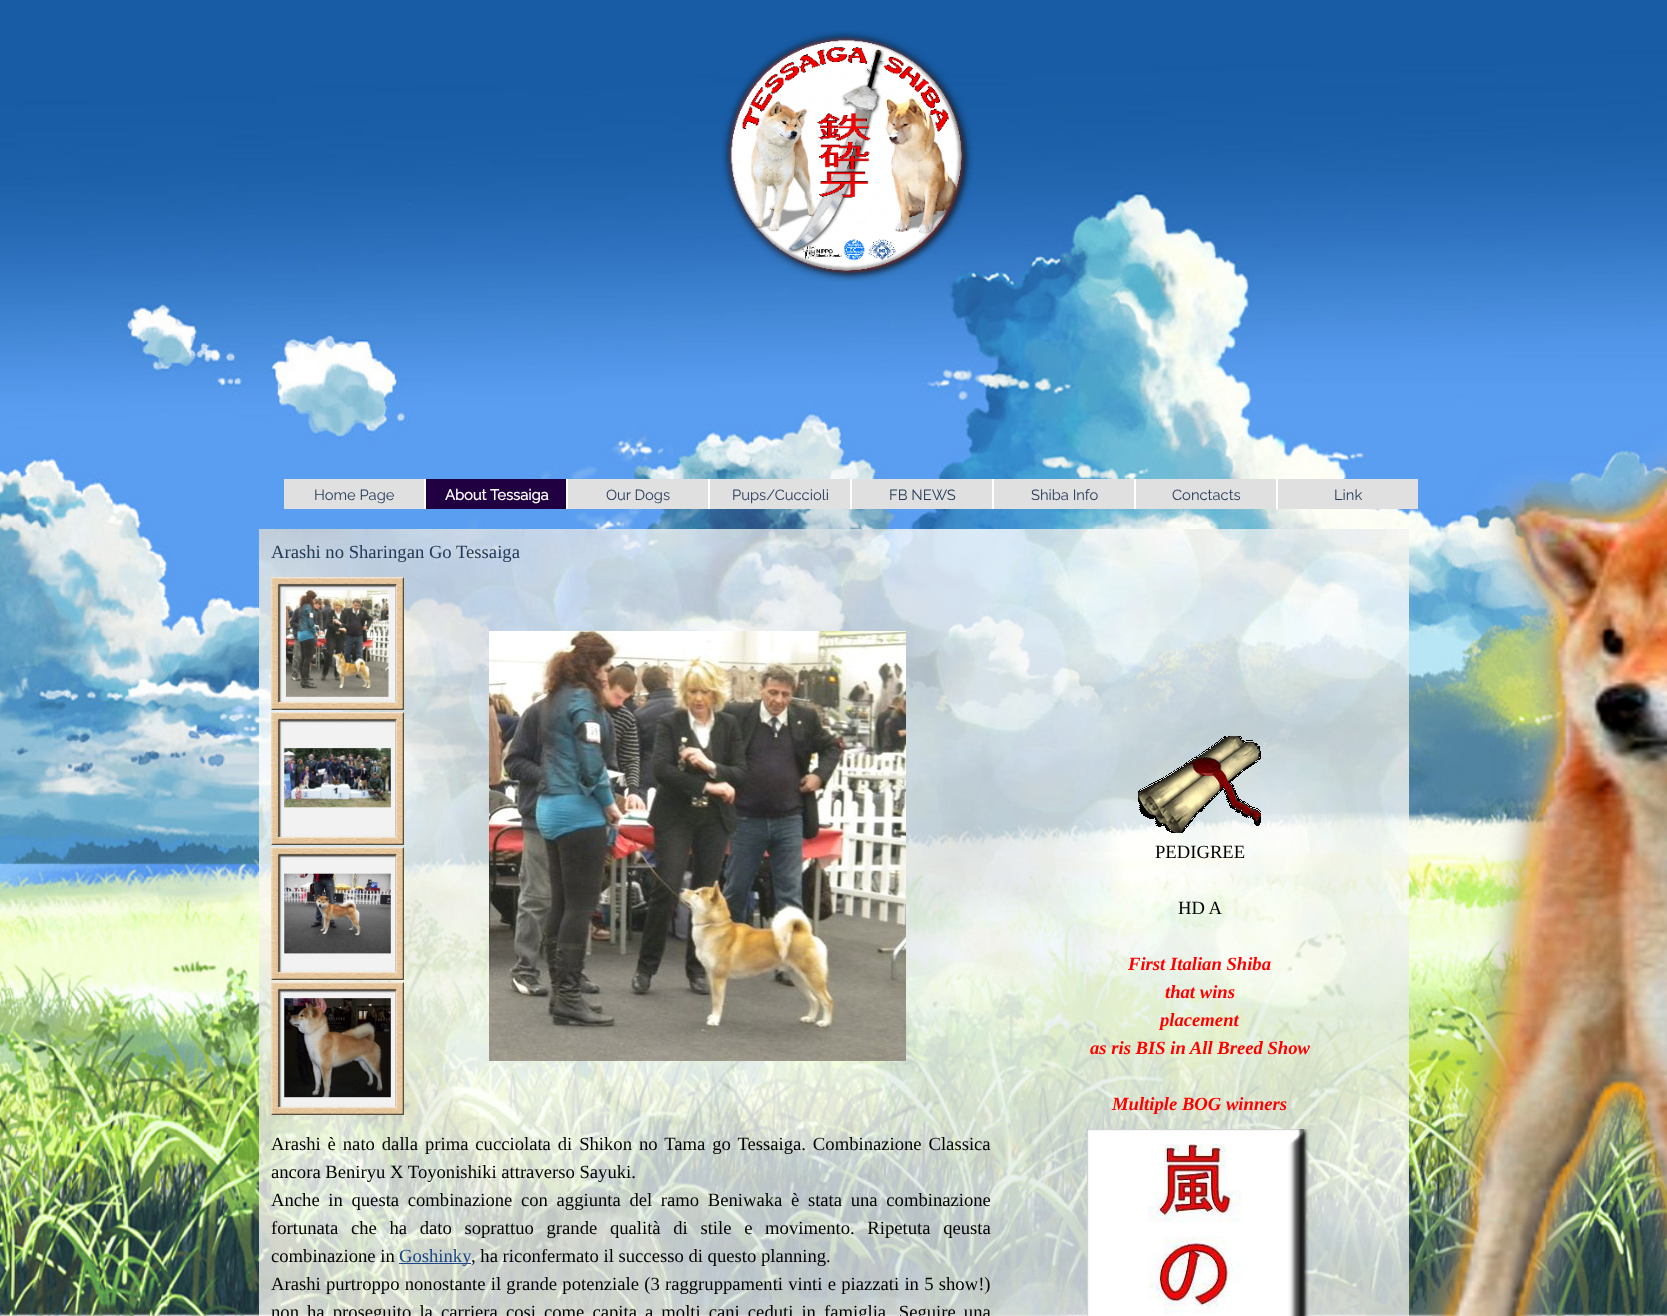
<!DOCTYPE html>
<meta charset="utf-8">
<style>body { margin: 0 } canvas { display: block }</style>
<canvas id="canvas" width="1667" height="1316"></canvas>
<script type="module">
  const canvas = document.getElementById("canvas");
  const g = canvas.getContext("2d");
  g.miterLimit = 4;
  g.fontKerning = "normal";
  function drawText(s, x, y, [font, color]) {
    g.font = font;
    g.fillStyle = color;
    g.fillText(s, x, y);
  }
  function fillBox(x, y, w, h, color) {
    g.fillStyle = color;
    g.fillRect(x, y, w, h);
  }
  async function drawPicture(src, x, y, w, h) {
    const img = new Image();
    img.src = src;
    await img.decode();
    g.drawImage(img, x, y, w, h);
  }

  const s1 = ["100 14.75px Raleway", "#253A58"];
  const s2 = ["bold 14.75px Raleway", "#FFFFFF"];
  const s3 = ["18.65px Liberation Serif", "#253A58"];
  const s4 = ["18.65px Liberation Serif", "#000000"];
  const s5 = ["italic bold 18.65px Liberation Serif", "#FF0000"];
  const s6 = ["18.65px Liberation Serif", "#1C4587"];

  fillBox(0, 0, 1667, 1316, "#FFFFFF");
  await drawPicture("pic1.png", 0, 0, 1667, 1316);
  await drawPicture("pic2.png", 722, 31, 251, 251);
  fillBox(424, 479, 854, 30, "#FFFFFF");
  fillBox(284, 479, 140, 30, "#E0E0E0");
  drawText("Home Page", 314, 500, s1);
  fillBox(426, 479, 140, 30, "#200040");
  drawText("About Tessaiga", 445, 500, s2);
  fillBox(568, 479, 140, 30, "#E0E0E0");
  drawText("Our Dogs", 606, 500, s1);
  fillBox(710, 479, 140, 30, "#E0E0E0");
  drawText("Pups/Cuccioli", 732, 500, s1);
  fillBox(852, 479, 140, 30, "#E0E0E0");
  drawText("FB NEWS", 889, 500, s1);
  fillBox(994, 479, 140, 30, "#E0E0E0");
  drawText("Shiba Info", 1031, 500, s1);
  fillBox(1136, 479, 140, 30, "#E0E0E0");
  drawText("Conctacts", 1172, 500, s1);
  fillBox(1278, 479, 140, 30, "#E0E0E0");
  drawText("Link", 1334, 500, s1);
  await drawPicture("pic3.png", 259, 529, 1150, 787);
  drawText("Arashi no Sharingan Go Tessaiga", 271, 558, s3);
  await drawPicture("pic4.png", 271, 577, 133, 133);
  await drawPicture("pic5.png", 271, 712, 133, 133);
  await drawPicture("pic6.png", 271, 847, 133, 133);
  await drawPicture("pic7.png", 271, 982, 133, 133);
  await drawPicture("pic8.png", 489, 631, 417, 430);
  await drawPicture("pic9.png", 1138, 736, 123, 97);
  drawText("PEDIGREE", 1155, 858, s4);
  drawText("HD A", 1178, 914, s4);
  drawText("First Italian Shiba", 1128, 970, s5);
  drawText("that wins", 1165, 998, s5);
  drawText("placement", 1160, 1026, s5);
  drawText("as ris BIS in All Breed Show", 1090, 1054, s5);
  drawText("Multiple BOG winners", 1112, 1110, s5);
  g.wordSpacing = "2.25px";
  drawText("Arashi è nato dalla prima cucciolata di Shikon no Tama go Tessaiga. Combinazione Classica", 271, 1150, s4);
  g.wordSpacing = "0px";
  drawText("ancora Beniryu X Toyonishiki attraverso Sayuki.", 271, 1178, s4);
  g.wordSpacing = "4px";
  drawText("Anche in questa combinazione con aggiunta del ramo Beniwaka è stata una combinazione", 271, 1206, s4);
  g.wordSpacing = "8px";
  drawText("fortunata che ha dato soprattuo grande qualità di stile e movimento. Ripetuta qeusta", 271, 1234, s4);
  g.wordSpacing = "0px";
  drawText("combinazione in", 271, 1262, s4);
  fillBox(399, 1263, 72, 1, "#1C4587");
  drawText("Goshinky", 399, 1262, s6);
  drawText(", ha riconfermato il successo di questo planning.", 471, 1262, s4);
  g.wordSpacing = "0.6px";
  drawText("Arashi purtroppo nonostante il grande potenziale (3 raggruppamenti vinti e piazzati in 5 show!)", 271, 1290, s4);
  g.wordSpacing = "3.4px";
  drawText("non ha proseguito la carriera cosi come capita a molti cani ceduti in famiglia. Seguire una", 271, 1318, s4);
  await drawPicture("pic10.png", 1087, 1129, 222, 187);
</script>
